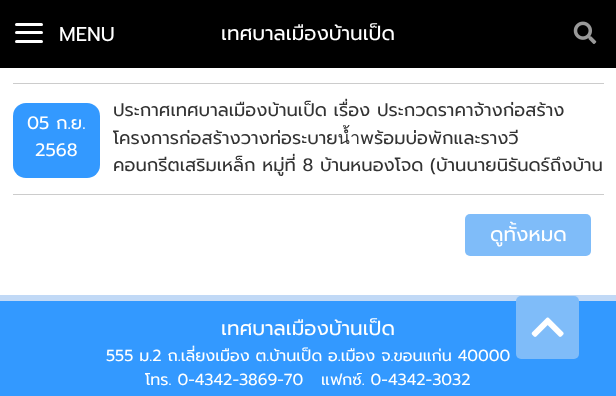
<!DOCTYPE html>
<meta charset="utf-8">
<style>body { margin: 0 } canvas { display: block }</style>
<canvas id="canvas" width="616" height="396"></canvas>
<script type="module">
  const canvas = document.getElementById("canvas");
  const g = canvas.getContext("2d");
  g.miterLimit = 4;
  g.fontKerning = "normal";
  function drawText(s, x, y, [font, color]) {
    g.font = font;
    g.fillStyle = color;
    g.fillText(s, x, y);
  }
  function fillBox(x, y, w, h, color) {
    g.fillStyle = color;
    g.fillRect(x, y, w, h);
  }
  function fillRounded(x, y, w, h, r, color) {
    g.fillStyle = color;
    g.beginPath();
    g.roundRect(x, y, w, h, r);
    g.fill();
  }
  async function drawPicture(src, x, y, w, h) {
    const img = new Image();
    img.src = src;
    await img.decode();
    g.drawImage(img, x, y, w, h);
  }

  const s1 = ["20px Prompt", "#FFFFFF"];
  const s2 = ["18px Prompt", "#FFFFFF"];
  const s3 = ["18px Prompt", "#333333"];
  const s4 = ["16px Prompt", "#FFFFFF"];

  fillBox(0, 0, 616, 396, "#C1D9F6");
  fillBox(0, 0, 616, 68, "#000000");
  fillRounded(15, 23, 28, 3, 1.5, "#FFFFFF");
  fillRounded(15, 31, 28, 3, 1.5, "#FFFFFF");
  fillRounded(15, 40, 28, 3, 1.5, "#FFFFFF");
  drawText("MENU", 59, 41, s1);
  drawText("เทศบาลเมืองบ้านเป็ด", 221, 40, s1);
  await drawPicture("pic1.png", 573, 21, 24, 23);
  fillBox(0, 68, 616, 227, "#FFFFFF");
  fillBox(13, 83, 591, 1, "#CCCCCC");
  fillBox(13, 194, 591, 1, "#CCCCCC");
  fillRounded(13, 103, 87, 75, 13, "#3399FF");
  drawText("05 ก.ย.", 27, 129, s2);
  drawText("2568", 35, 156, s2);
  drawText("ประกาศเทศบาลเมืองบ้านเป็ด เรื่อง ประกวดราคาจ้างก่อสร้าง", 113, 116, s3);
  drawText("โครงการก่อสร้างวางท่อระบายน้ำพร้อมบ่อพักและรางวี", 113, 144, s3);
  drawText("คอนกรีตเสริมเหล็ก หมู่ที่ 8 บ้านหนองโจด (บ้านนายนิรันดร์ถึงบ้าน", 113, 171, s3);
  fillRounded(465, 214, 126, 42, 5, "#7FBCF9");
  drawText("ดูทั้งหมด", 490, 241, s1);
  fillBox(0, 301, 616, 95, "#3399FF");
  drawText("เทศบาลเมืองบ้านเป็ด", 221, 335, s1);
  drawText("555 ม.2 ถ.เลี่ยงเมือง ต.บ้านเป็ด อ.เมือง จ.ขอนแก่น 40000", 106, 361, s4);
  drawText("โทร. 0-4342-3869-70   แฟกซ์. 0-4342-3032", 145, 385, s4);
  fillRounded(516, 296, 63, 63, 5, "#7FBCF9");
  await drawPicture("pic2.png", 531, 317, 33, 20);
</script>
